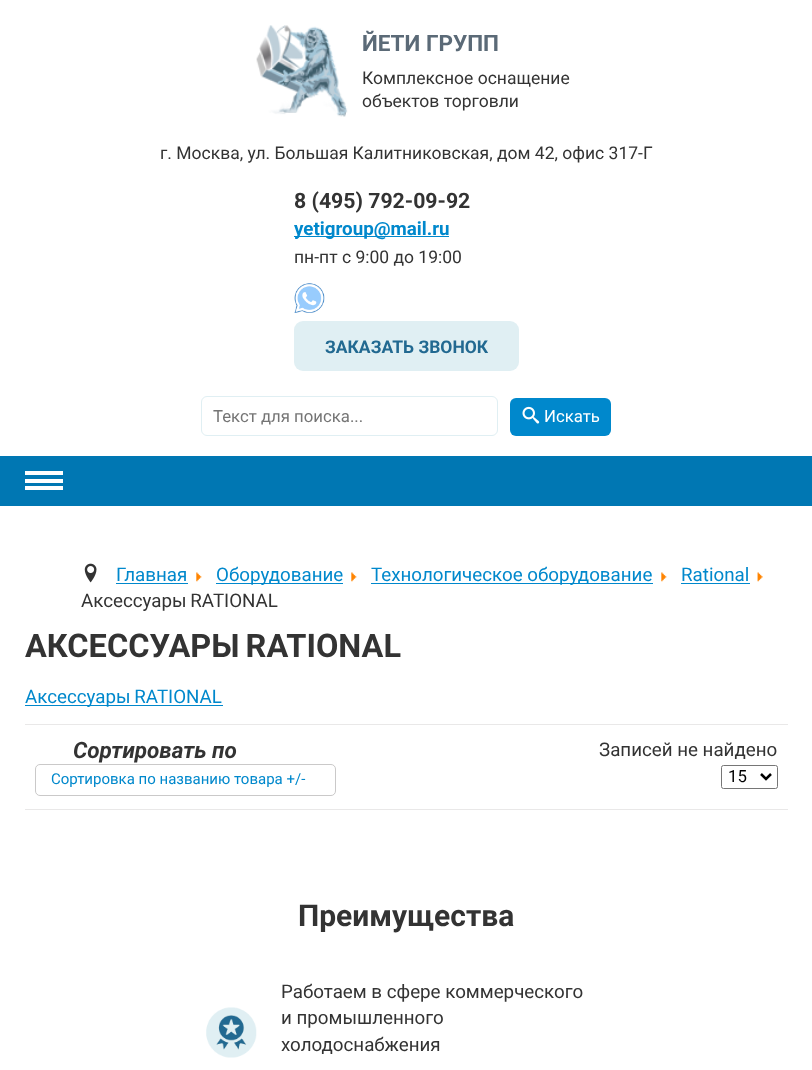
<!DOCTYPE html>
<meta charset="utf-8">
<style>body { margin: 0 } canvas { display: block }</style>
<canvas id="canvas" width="812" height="1070"></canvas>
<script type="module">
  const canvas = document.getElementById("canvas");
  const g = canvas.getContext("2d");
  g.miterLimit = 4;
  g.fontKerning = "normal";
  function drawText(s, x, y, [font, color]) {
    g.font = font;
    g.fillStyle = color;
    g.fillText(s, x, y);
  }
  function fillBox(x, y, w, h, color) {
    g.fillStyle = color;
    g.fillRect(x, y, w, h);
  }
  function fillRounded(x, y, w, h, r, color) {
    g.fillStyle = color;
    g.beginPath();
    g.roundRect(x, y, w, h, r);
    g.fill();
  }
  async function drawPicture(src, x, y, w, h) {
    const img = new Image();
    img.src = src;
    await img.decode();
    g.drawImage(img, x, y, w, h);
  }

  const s1 = ["bold 22.5px Roboto", "#5B6A77"];
  const s2 = ["17.5px Roboto", "#333333"];
  const s3 = ["bold 21.25px Roboto", "#333333"];
  const s4 = ["bold 18.75px Roboto", "#0088CC"];
  const s5 = ["bold 17.5px Roboto", "#226991"];
  const s6 = ["16.75px Roboto", "#757575"];
  const s7 = ["16.75px Roboto", "#FFFFFF"];
  const s8 = ["18.75px Roboto", "#0088CC"];
  const s9 = ["18.75px Roboto", "#333333"];
  const s10 = ["bold 32.5px Roboto", "#333333"];
  const s11 = ["italic bold 22.5px Roboto", "#333333"];
  const s12 = ["15px Roboto", "#0088CC"];
  const s13 = ["16.75px Roboto", "#000000"];
  const s14 = ["bold 30px Roboto", "#333333"];

  fillBox(0, 0, 812, 1070, "#FFFFFF");
  await drawPicture("pic1.png", 256, 25, 92, 92);
  drawText("ЙЕТИ ГРУПП", 362, 51, s1);
  drawText("Комплексное оснащение", 362, 84, s2);
  drawText("объектов торговли", 362, 107, s2);
  drawText("г. Москва, ул. Большая Калитниковская, дом 42, офис 317-Г", 160, 159, s2);
  drawText("8 (495) 792-09-92", 294, 208, s3);
  fillBox(294, 236, 155, 1, "#0088CC");
  drawText("yetigroup@mail.ru", 294, 235, s4);
  drawText("пн-пт с 9:00 до 19:00", 294, 263, s2);
  await drawPicture("pic2.png", 294, 283, 31, 30);
  fillRounded(294, 321, 225, 50, 9, "#E0EFF3");
  drawText("ЗАКАЗАТЬ ЗВОНОК", 325, 353, s5);
  g.beginPath();
  g.roundRect(201.5, 396.5, 296, 39, 5.5);
  g.strokeStyle = "#E0EFF3";
  g.stroke();
  drawText("Текст для поиска...", 213, 422, s6);
  fillRounded(510, 398, 101, 38, 6, "#0088CC");
  await drawPicture("pic3.png", 522, 406, 18, 18);
  drawText("Искать", 544, 422, s7);
  fillBox(0, 456, 812, 50, "#0077B3");
  fillBox(25, 471, 38, 4, "#FFFFFF");
  fillBox(25, 479, 38, 4, "#FFFFFF");
  fillBox(25, 486, 38, 4, "#FFFFFF");
  await drawPicture("pic4.png", 84, 563, 13, 20);
  drawText("Главная", 116, 581, s8);
  fillBox(116, 583, 72, 1, "#0088CC");
  await drawPicture("pic5.png", 196, 572, 6, 10);
  fillBox(216, 583, 127, 1, "#0088CC");
  drawText("Оборудование", 216, 581, s8);
  await drawPicture("pic6.png", 351, 572, 6, 10);
  fillBox(371, 583, 282, 1, "#0088CC");
  drawText("Технологическое оборудование", 371, 581, s8);
  await drawPicture("pic5.png", 661, 572, 6, 10);
  drawText("Rational", 681, 581, s8);
  fillBox(681, 583, 69, 1, "#0088CC");
  await drawPicture("pic7.png", 757, 572, 6, 10);
  g.wordSpacing = "-1px";
  drawText("Аксессуары RATIONAL", 81, 607, s9);
  g.wordSpacing = "-2px";
  drawText("АКСЕССУАРЫ RATIONAL", 25, 657, s10);
  fillBox(25, 705, 198, 1, "#0088CC");
  g.wordSpacing = "-1px";
  drawText("Аксессуары RATIONAL", 25, 703, s8);
  fillBox(25, 724, 763, 1, "#E9E8E8");
  fillBox(25, 809, 763, 1, "#E9E8E8");
  g.wordSpacing = "0px";
  drawText("Сортировать по", 73, 758, s11);
  g.beginPath();
  g.roundRect(35.5, 764.5, 300, 31, 4.5);
  g.strokeStyle = "#CAC9C9";
  g.stroke();
  drawText("Сортировка по названию товара +/-", 51, 784, s12);
  drawText("Записей не найдено", 599, 756, s9);
  g.beginPath();
  g.roundRect(721.5, 765.5, 56, 23, 2);
  g.strokeStyle = "#767676";
  g.stroke();
  g.beginPath();
  g.moveTo(761, 774);
  g.lineTo(766, 779);
  g.lineTo(771, 774);
  g.strokeStyle = "#000000";
  g.lineWidth = 2.5;
  g.stroke();
  drawText("15", 728, 782, s13);
  drawText("Преимущества", 298, 926, s14);
  await drawPicture("pic8.png", 206, 1007, 51, 51);
  drawText("Работаем в сфере коммерческого", 281, 998, s9);
  drawText("и промышленного", 281, 1024, s9);
  drawText("холодоснабжения", 281, 1051, s9);
</script>
